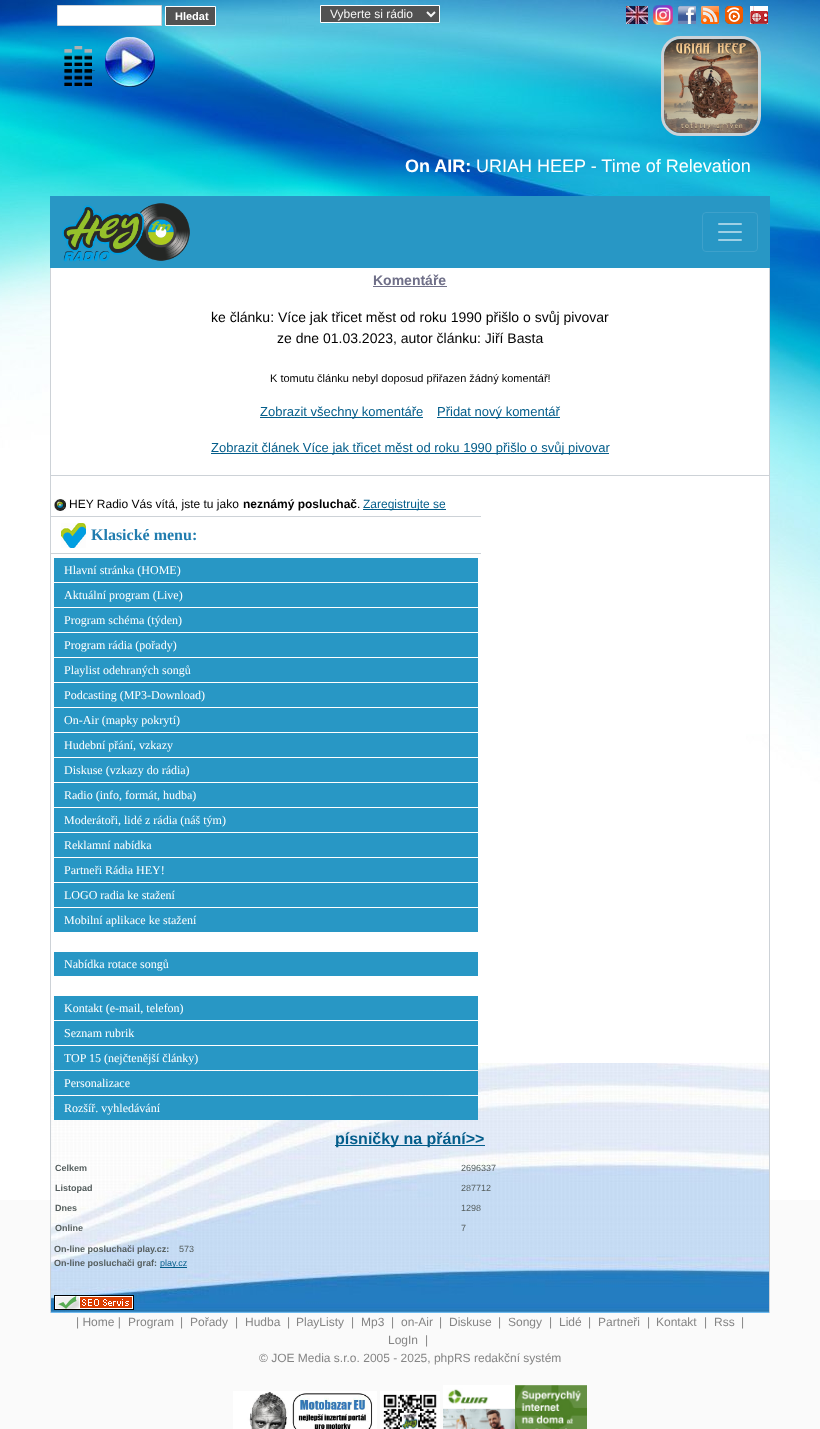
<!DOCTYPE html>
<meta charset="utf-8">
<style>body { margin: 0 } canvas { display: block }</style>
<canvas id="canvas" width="820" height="1429"></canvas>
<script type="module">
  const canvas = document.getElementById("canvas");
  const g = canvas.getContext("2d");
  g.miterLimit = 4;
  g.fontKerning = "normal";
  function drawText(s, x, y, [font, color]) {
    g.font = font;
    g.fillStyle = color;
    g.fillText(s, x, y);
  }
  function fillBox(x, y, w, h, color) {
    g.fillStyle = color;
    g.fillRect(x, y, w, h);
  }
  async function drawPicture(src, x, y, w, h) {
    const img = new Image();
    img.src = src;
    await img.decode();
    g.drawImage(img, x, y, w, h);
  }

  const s1 = ["bold 11px Liberation Sans", "#FFFFFF"];
  const s2 = ["12px Liberation Sans", "#F5F5F5"];
  const s3 = ["bold 18px Liberation Sans", "#FFFFFF"];
  const s4 = ["18px Liberation Sans", "#FFFFFF"];
  const s5 = ["bold 14px Liberation Sans", "#6F6F88"];
  const s6 = ["14px Liberation Sans", "#000000"];
  const s7 = ["11px Liberation Sans", "#000000"];
  const s8 = ["13px Liberation Sans", "#035D8A"];
  const s9 = ["12px Liberation Sans", "#000000"];
  const s10 = ["bold 12px Liberation Sans", "#000000"];
  const s11 = ["12px Liberation Sans", "#035D8A"];
  const s12 = ["bold 16px Liberation Serif", "#217DAF"];
  const s13 = ["12px Liberation Serif", "#FFFFFF"];
  const s14 = ["bold 16px Liberation Sans", "#035D8A"];
  const s15 = ["bold 9px Liberation Sans", "#555E5E"];
  const s16 = ["9px Liberation Sans", "#555E5E"];
  const s17 = ["9px Liberation Sans", "#035D8A"];
  const s18 = ["12px Liberation Sans", "#858585"];

  fillBox(0, 0, 820, 1429, "#FAFAFA");
  await drawPicture("pic1.png", 0, 0, 820, 1200);
  g.fillStyle = "#FFFFFF";
  g.beginPath();
  g.rect(57.5, 5.5, 104, 20);
  g.fill();
  g.strokeStyle = "#CDD2D7";
  g.stroke();
  g.fillStyle = "#525252";
  g.beginPath();
  g.rect(165.5, 6.5, 50, 19);
  g.fill();
  g.strokeStyle = "#FFFFFF";
  g.stroke();
  drawText("Hledat", 175, 20, s1);
  g.fillStyle = "#525252";
  g.beginPath();
  g.rect(320.5, 5.5, 119, 17);
  g.fill();
  g.stroke();
  g.beginPath();
  g.moveTo(427, 12);
  g.lineTo(431, 16);
  g.lineTo(435, 12);
  g.strokeStyle = "#F5F5F5";
  g.lineWidth = 2;
  g.stroke();
  drawText("Vyberte si rádio", 330, 18, s2);
  await drawPicture("pic2.png", 626, 6, 22, 18);
  await drawPicture("pic3.png", 653, 5, 20, 20);
  await drawPicture("pic4.png", 678, 6, 18, 18);
  await drawPicture("pic5.png", 701, 6, 18, 18);
  await drawPicture("pic6.png", 725, 6, 18, 18);
  await drawPicture("pic7.png", 750, 6, 18, 18);
  await drawPicture("pic8.png", 64, 46, 28, 40);
  fillBox(92, 70, 3, 1, "#035D8A");
  await drawPicture("pic9.png", 105, 37, 50, 50);
  g.beginPath();
  g.roundRect(662.5, 37.5, 97, 97, 18.5);
  g.strokeStyle = "#CDD2D7";
  g.lineWidth = 3;
  g.stroke();
  await drawPicture("pic10.png", 664, 39, 94, 94);
  drawText("On AIR:", 405, 172, s3);
  drawText("URIAH HEEP - Time of Relevation", 476, 172, s4);
  fillBox(50, 196, 720, 72, "#2897C5");
  await drawPicture("pic11.png", 62, 203, 128, 59);
  g.beginPath();
  g.roundRect(702.5, 212.5, 55, 39, 3.5);
  g.strokeStyle = "#3EA1CB";
  g.lineWidth = 1;
  g.stroke();
  await drawPicture("pic12.png", 718, 223, 24, 18);
  fillBox(51, 268, 718, 466, "#FFFFFF");
  await drawPicture("pic13.png", 51, 1063, 718, 250);
  fillBox(769, 268, 1, 1045, "#CDD2D7");
  fillBox(50, 268, 1, 1045, "#CDD2D7");
  fillBox(51, 475, 718, 1, "#CDD2D7");
  drawText("Komentáře", 373, 285, s5);
  fillBox(373, 286, 74, 1, "#6F6F88");
  drawText("ke článku: Více jak třicet měst od roku 1990 přišlo o svůj pivovar", 211, 322, s6);
  drawText("ze dne 01.03.2023, autor článku: Jiří Basta", 277, 343, s6);
  drawText("K tomutu článku nebyl doposud přiřazen žádný komentář!", 270, 382, s7);
  fillBox(260, 417, 163, 1, "#035D8A");
  drawText("Zobrazit všechny komentáře", 260, 416, s8);
  fillBox(437, 417, 123, 1, "#035D8A");
  drawText("Přidat nový komentář", 437, 416, s8);
  fillBox(211, 453, 398, 1, "#035D8A");
  drawText("Zobrazit článek Více jak třicet měst od roku 1990 přišlo o svůj pivovar", 211, 452, s8);
  await drawPicture("pic14.png", 54, 499, 12, 12);
  drawText("HEY Radio Vás vítá, jste tu jako", 69, 508, s9);
  drawText("neznámý posluchač", 243, 508, s10);
  drawText(".", 357, 508, s9);
  fillBox(363, 509, 83, 1, "#035D8A");
  drawText("Zaregistrujte se", 363, 508, s11);
  await drawPicture("pic15.png", 61, 523, 25, 25);
  fillBox(51, 516, 430, 1, "#CDD2D7");
  fillBox(51, 553, 430, 1, "#CDD2D7");
  drawText("Klasické menu:", 91, 540, s12);
  fillBox(54, 558, 424, 24, "#2897C5");
  drawText("Hlavní stránka (HOME)", 64, 574, s13);
  fillBox(54, 583, 424, 24, "#2897C5");
  drawText("Aktuální program (Live)", 64, 599, s13);
  fillBox(54, 608, 424, 24, "#2897C5");
  drawText("Program schéma (týden)", 64, 624, s13);
  fillBox(54, 633, 424, 24, "#2897C5");
  drawText("Program rádia (pořady)", 64, 649, s13);
  fillBox(54, 658, 424, 24, "#2897C5");
  drawText("Playlist odehraných songů", 64, 674, s13);
  fillBox(54, 683, 424, 24, "#2897C5");
  drawText("Podcasting (MP3-Download)", 64, 699, s13);
  fillBox(54, 708, 424, 24, "#2897C5");
  drawText("On-Air (mapky pokrytí)", 64, 724, s13);
  fillBox(54, 733, 424, 24, "#2897C5");
  drawText("Hudební přání, vzkazy", 64, 749, s13);
  fillBox(54, 758, 424, 24, "#2897C5");
  drawText("Diskuse (vzkazy do rádia)", 64, 774, s13);
  fillBox(54, 783, 424, 24, "#2897C5");
  drawText("Radio (info, formát, hudba)", 64, 799, s13);
  fillBox(54, 808, 424, 24, "#2897C5");
  drawText("Moderátoři, lidé z rádia (náš tým)", 64, 824, s13);
  fillBox(54, 833, 424, 24, "#2897C5");
  drawText("Reklamní nabídka", 64, 849, s13);
  fillBox(54, 858, 424, 24, "#2897C5");
  drawText("Partneři Rádia HEY!", 64, 874, s13);
  fillBox(54, 883, 424, 24, "#2897C5");
  drawText("LOGO radia ke stažení", 64, 899, s13);
  fillBox(54, 908, 424, 24, "#2897C5");
  drawText("Mobilní aplikace ke stažení", 64, 924, s13);
  fillBox(54, 952, 424, 24, "#2897C5");
  drawText("Nabídka rotace songů", 64, 968, s13);
  fillBox(54, 996, 424, 24, "#2897C5");
  drawText("Kontakt (e-mail, telefon)", 64, 1012, s13);
  fillBox(54, 1021, 424, 24, "#2897C5");
  drawText("Seznam rubrik", 64, 1037, s13);
  fillBox(54, 1046, 424, 24, "#2897C5");
  drawText("TOP 15 (nejčtenější články)", 64, 1062, s13);
  fillBox(54, 1071, 424, 24, "#2897C5");
  drawText("Personalizace", 64, 1087, s13);
  fillBox(54, 1096, 424, 24, "#2897C5");
  drawText("Rozšíř. vyhledávání", 64, 1112, s13);
  fillBox(335, 1145, 150, 1, "#035D8A");
  drawText("písničky na přání>>", 335, 1144, s14);
  drawText("Celkem", 55, 1171, s15);
  drawText("2696337", 461, 1171, s16);
  drawText("Listopad", 55, 1191, s15);
  drawText("287712", 461, 1191, s16);
  drawText("Dnes", 55, 1211, s15);
  drawText("1298", 461, 1211, s16);
  drawText("Online", 55, 1231, s15);
  drawText("7", 461, 1231, s16);
  drawText("On-line posluchači play.cz:", 54, 1252, s15);
  drawText("573", 179, 1252, s16);
  drawText("On-line posluchači graf:", 54, 1266, s15);
  fillBox(160, 1267, 27, 1, "#035D8A");
  drawText("play.cz", 160, 1266, s17);
  await drawPicture("pic16.png", 54, 1295, 80, 15);
  drawText("| Home |", 76, 1326, s18);
  drawText("Program", 128, 1326, s18);
  drawText("|", 180, 1326, s18);
  drawText("Pořady", 190, 1326, s18);
  drawText("|", 235, 1326, s18);
  drawText("Hudba", 245, 1326, s18);
  drawText("|", 287, 1326, s18);
  drawText("PlayListy", 296, 1326, s18);
  drawText("|", 351, 1326, s18);
  drawText("Mp3", 361, 1326, s18);
  drawText("|", 391, 1326, s18);
  drawText("on-Air", 401, 1326, s18);
  drawText("|", 439, 1326, s18);
  drawText("Diskuse", 449, 1326, s18);
  drawText("|", 498, 1326, s18);
  drawText("Songy", 508, 1326, s18);
  drawText("|", 549, 1326, s18);
  drawText("Lidé", 559, 1326, s18);
  drawText("|", 588, 1326, s18);
  drawText("Partneři", 598, 1326, s18);
  drawText("|", 647, 1326, s18);
  drawText("Kontakt", 656, 1326, s18);
  drawText("|", 704, 1326, s18);
  drawText("Rss", 714, 1326, s18);
  drawText("|", 741, 1326, s18);
  drawText("LogIn", 388, 1344, s18);
  drawText("|", 425, 1344, s18);
  drawText("© JOE Media s.r.o. 2005 - 2025, phpRS redakční systém", 259, 1362, s18);
  await drawPicture("pic17.png", 233, 1391, 144, 38);
  await drawPicture("pic18.png", 380, 1391, 60, 38);
  await drawPicture("pic19.png", 443, 1385, 144, 44);
</script>
